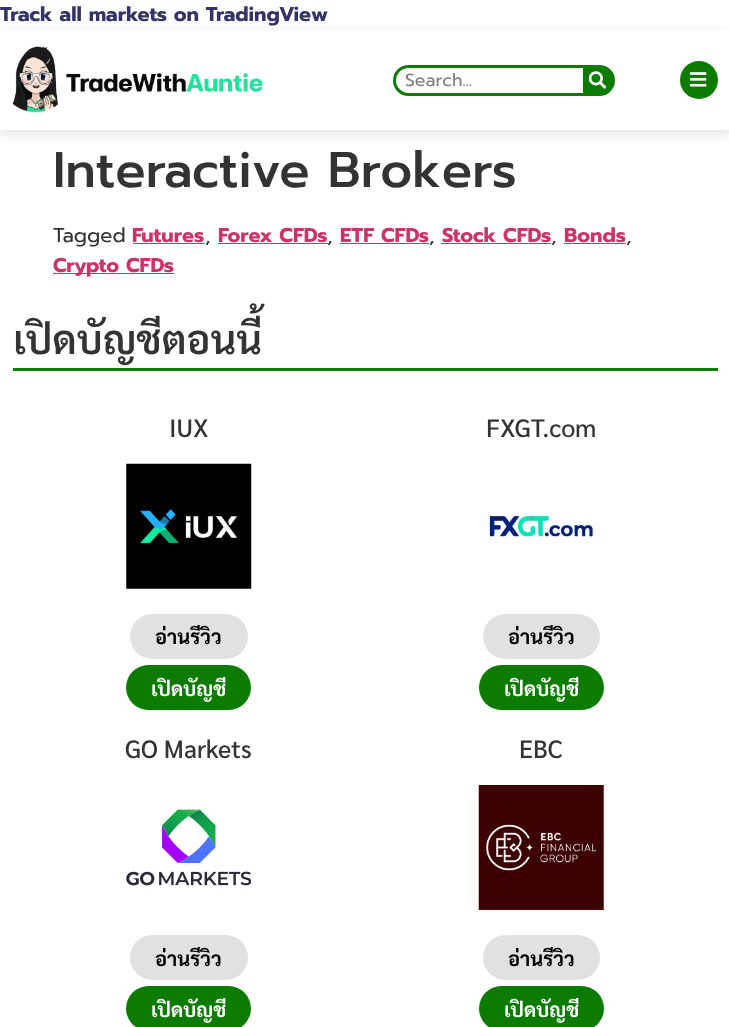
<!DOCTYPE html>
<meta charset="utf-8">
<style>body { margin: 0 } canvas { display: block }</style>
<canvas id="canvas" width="729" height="1027"></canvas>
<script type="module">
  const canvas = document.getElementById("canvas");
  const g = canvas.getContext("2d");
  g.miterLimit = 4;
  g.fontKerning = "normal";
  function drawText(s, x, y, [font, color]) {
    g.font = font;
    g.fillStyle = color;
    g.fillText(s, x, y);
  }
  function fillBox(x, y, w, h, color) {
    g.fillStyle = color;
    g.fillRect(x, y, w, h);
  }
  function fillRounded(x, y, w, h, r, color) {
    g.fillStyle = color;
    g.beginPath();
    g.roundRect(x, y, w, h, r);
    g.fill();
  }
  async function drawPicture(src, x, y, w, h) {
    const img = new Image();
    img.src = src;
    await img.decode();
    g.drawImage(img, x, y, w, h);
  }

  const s1 = ["bold 20px Prompt", "#333366"];
  const s2 = ["17.5px Prompt", "#7E7E7E"];
  const s3 = ["500 50px Prompt", "#333333"];
  const s4 = ["20px Prompt", "#333333"];
  const s5 = ["bold 20px Prompt", "#CC3366"];
  const s6 = ["600 40px Sarabun", "#333333"];
  const s7 = ["500 25px Sarabun", "#333333"];
  const s8 = ["bold 20px Sarabun", "#000000"];
  const s9 = ["bold 20px Sarabun", "#FFFFFF"];

  fillBox(0, 0, 729, 1027, "#FFFFFF");
  drawText("Track all markets on TradingView", 0, 21, s1);
  g.save();
  g.beginPath();
  g.moveTo(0, 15);
  g.lineTo(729, 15);
  g.lineTo(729, 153);
  g.lineTo(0, 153);
  g.closePath();
  g.moveTo(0, 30);
  g.lineTo(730, 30);
  g.lineTo(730, 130);
  g.lineTo(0, 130);
  g.closePath();
  g.clip("evenodd");
  g.fillStyle = "rgba(0, 0, 0, 0.12)";
  g.filter = "blur(6px)";
  g.beginPath();
  g.rect(0, 34, 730, 100);
  g.fill();
  g.filter = "none";
  g.restore();
  await drawPicture("pic1.png", 12, 46, 251, 67);
  g.beginPath();
  g.roundRect(394.5, 66.5, 219, 28, 14);
  g.strokeStyle = "#0B7B02";
  g.lineWidth = 3;
  g.stroke();
  drawText("Search...", 405, 86, s2);
  g.fillStyle = "#0B7B02";
  g.beginPath();
  g.roundRect(583, 68, 30, 26, [0, 13, 13, 0]);
  g.fill();
  await drawPicture("pic2.png", 589, 71, 17, 18);
  g.beginPath();
  g.arc(699, 80, 19, 0, Math.PI * 2);
  g.fill();
  await drawPicture("pic3.png", 689, 72, 18, 15);
  drawText("Interactive Brokers", 53, 187, s3);
  drawText("Tagged", 53, 242, s4);
  drawText("Futures", 132, 242, s5);
  drawText(",", 205, 242, s4);
  fillBox(133, 243, 72, 1, "#CC3366");
  drawText("Forex CFDs", 218, 242, s5);
  fillBox(218, 243, 110, 1, "#CC3366");
  drawText(",", 327, 242, s4);
  drawText("ETF CFDs", 340, 242, s5);
  drawText(",", 429, 242, s4);
  fillBox(340, 243, 89, 1, "#CC3366");
  drawText("Stock CFDs", 442, 242, s5);
  drawText(",", 551, 242, s4);
  fillBox(441, 243, 110, 1, "#CC3366");
  drawText("Bonds", 564, 242, s5);
  drawText(",", 626, 242, s4);
  fillBox(564, 243, 62, 1, "#CC3366");
  fillBox(53, 273, 121, 1, "#CC3366");
  drawText("Crypto CFDs", 53, 272, s5);
  drawText("เปิดบัญชีตอนนี้", 13, 354, s6);
  fillBox(13, 368, 705, 3, "#0B7B02");
  drawText("IUX", 169, 437, s7);
  await drawPicture("pic4.png", 126, 463, 126, 126);
  fillRounded(130, 614, 118, 45, 22.5, "#E1E1E1");
  drawText("อ่านรีวิว", 155, 644, s8);
  fillRounded(126, 665, 125, 45, 22.5, "#0B7B02");
  drawText("เปิดบัญชี", 151, 696, s9);
  drawText("FXGT.com", 486, 437, s7);
  await drawPicture("pic5.png", 489, 514, 105, 25);
  fillRounded(483, 614, 117, 45, 22.5, "#E1E1E1");
  drawText("อ่านรีวิว", 508, 644, s8);
  fillRounded(479, 665, 125, 45, 22.5, "#0B7B02");
  drawText("เปิดบัญชี", 504, 696, s9);
  drawText("GO Markets", 125, 758, s7);
  await drawPicture("pic6.png", 126, 809, 125, 77);
  fillRounded(130, 935, 118, 45, 22.5, "#E1E1E1");
  drawText("อ่านรีวิว", 155, 966, s8);
  fillRounded(126, 986, 125, 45, 22.5, "#0B7B02");
  drawText("เปิดบัญชี", 151, 1017, s9);
  drawText("EBC", 519, 758, s7);
  await drawPicture("pic7.png", 478, 785, 126, 125);
  fillRounded(483, 935, 117, 45, 22.5, "#E1E1E1");
  drawText("อ่านรีวิว", 508, 966, s8);
  fillRounded(479, 986, 125, 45, 22.5, "#0B7B02");
  drawText("เปิดบัญชี", 504, 1017, s9);
</script>
